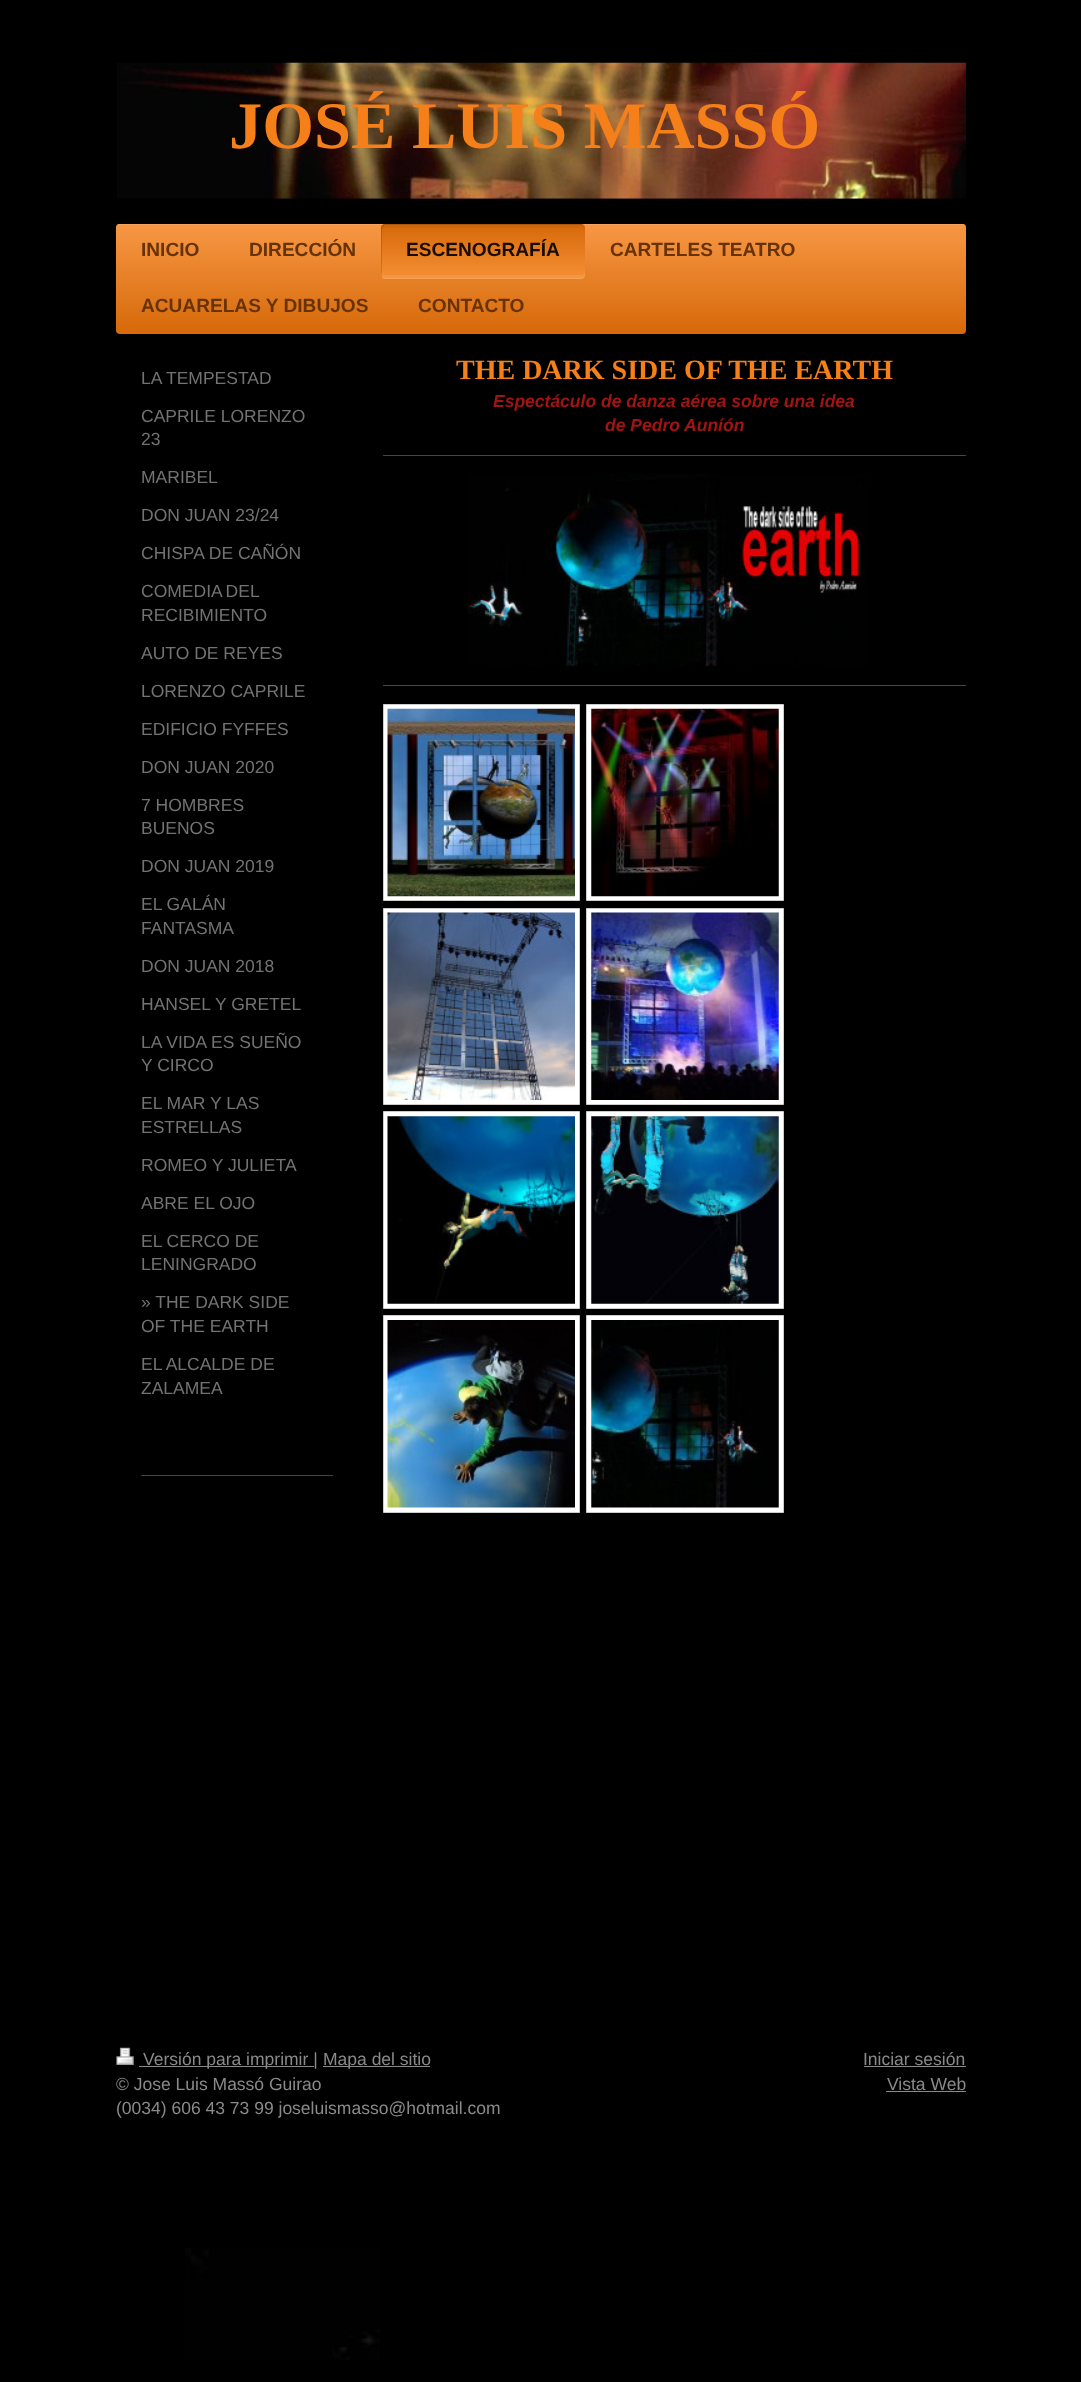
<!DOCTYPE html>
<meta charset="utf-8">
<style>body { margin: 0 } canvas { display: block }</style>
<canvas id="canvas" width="1081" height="2382"></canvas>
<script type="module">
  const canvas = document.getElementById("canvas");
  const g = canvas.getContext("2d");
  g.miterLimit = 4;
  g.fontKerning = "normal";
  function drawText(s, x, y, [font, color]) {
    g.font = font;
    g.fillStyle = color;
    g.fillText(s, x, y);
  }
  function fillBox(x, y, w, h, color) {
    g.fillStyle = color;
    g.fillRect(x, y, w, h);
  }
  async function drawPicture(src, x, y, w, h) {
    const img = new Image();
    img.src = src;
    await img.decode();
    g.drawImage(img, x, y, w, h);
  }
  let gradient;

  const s1 = ["bold 66.5px Liberation Serif", "#F57F18"];
  const s2 = ["bold 19.1px Liberation Sans", "#673306"];
  const s3 = ["bold 19.1px Liberation Sans", "#190D02"];
  const s4 = ["17.5px Liberation Sans", "#737373"];
  const s5 = ["bold 28px Liberation Serif", "#F57F18"];
  const s6 = ["italic bold 17.5px Liberation Sans", "#A01414"];
  const s7 = ["17.5px Liberation Sans", "#8A8A8A"];

  fillBox(0, 0, 1081, 2382, "#000000");
  await drawPicture("pic1.png", 185, 2248, 195, 112);
  await drawPicture("pic2.png", 117, 62, 850, 137);
  drawText("JOSÉ LUIS MASSÓ", 229, 148, s1);
  gradient = g.createLinearGradient(116, 224, 116, 334);
  gradient.addColorStop(0, "#F79744");
  gradient.addColorStop(1, "#D66909");
  g.fillStyle = gradient;
  g.beginPath();
  g.roundRect(116, 224, 850, 110, 4);
  g.fill();
  g.fillStyle = "#F57C13";
  g.beginPath();
  g.moveTo(120, 225);
  g.lineTo(962, 225);
  g.bezierCurveTo(965, 225, 966, 227, 966, 229);
  g.bezierCurveTo(966, 226, 965, 224, 962, 224);
  g.lineTo(120, 224);
  g.bezierCurveTo(117, 224, 116, 226, 116, 229);
  g.bezierCurveTo(116, 227, 118, 225, 120, 225);
  g.closePath();
  g.fill();
  g.fillStyle = "rgba(255, 255, 255, 0.3)";
  g.beginPath();
  g.moveTo(120, 225);
  g.lineTo(962, 225);
  g.bezierCurveTo(965, 225, 966, 227, 966, 229);
  g.bezierCurveTo(966, 226, 965, 224, 962, 224);
  g.lineTo(120, 224);
  g.bezierCurveTo(117, 224, 116, 226, 116, 229);
  g.bezierCurveTo(116, 227, 118, 225, 120, 225);
  g.closePath();
  g.fill();
  drawText("INICIO", 141, 256, s2);
  drawText("DIRECCIÓN", 249, 256, s2);
  gradient = g.createLinearGradient(381, 279, 381, 224);
  gradient.addColorStop(0, "#F68F35");
  gradient.addColorStop(1, "#D66909");
  g.fillStyle = gradient;
  g.beginPath();
  g.roundRect(381, 224, 204, 55, 4);
  g.fill();
  g.fillStyle = "rgba(0, 0, 0, 0.15)";
  g.beginPath();
  g.moveTo(386, 225);
  g.lineTo(582, 225);
  g.lineTo(584, 225);
  g.bezierCurveTo(583, 225, 582, 224, 581, 224);
  g.lineTo(385, 224);
  g.bezierCurveTo(383, 224, 381, 226, 381, 228);
  g.lineTo(381, 275);
  g.bezierCurveTo(381, 276, 382, 278, 383, 278);
  g.lineTo(382, 276);
  g.lineTo(382, 229);
  g.bezierCurveTo(382, 227, 384, 225, 386, 225);
  g.closePath();
  g.fill();
  g.fillStyle = "rgba(0, 0, 0, 0.04)";
  g.beginPath();
  g.moveTo(385, 228);
  g.lineTo(581, 228);
  g.bezierCurveTo(583, 228, 585, 229, 585, 231);
  g.lineTo(585, 228);
  g.bezierCurveTo(585, 226, 583, 224, 581, 224);
  g.lineTo(385, 224);
  g.bezierCurveTo(383, 224, 381, 226, 381, 228);
  g.lineTo(381, 231);
  g.bezierCurveTo(381, 229, 383, 228, 385, 228);
  g.closePath();
  g.fill();
  g.fillStyle = "rgba(255, 255, 255, 0.08)";
  g.beginPath();
  g.moveTo(381, 271);
  g.lineTo(381, 275);
  g.bezierCurveTo(381, 277, 383, 279, 385, 279);
  g.lineTo(581, 279);
  g.bezierCurveTo(583, 279, 585, 277, 585, 275);
  g.lineTo(585, 271);
  g.bezierCurveTo(585, 273, 583, 275, 581, 275);
  g.lineTo(385, 275);
  g.bezierCurveTo(383, 275, 381, 273, 381, 271);
  g.closePath();
  g.fill();
  g.fillStyle = "rgba(255, 255, 255, 0.1)";
  g.beginPath();
  g.moveTo(381, 274);
  g.lineTo(381, 275);
  g.bezierCurveTo(381, 277, 383, 279, 385, 279);
  g.lineTo(581, 279);
  g.bezierCurveTo(583, 279, 585, 277, 585, 275);
  g.lineTo(585, 274);
  g.bezierCurveTo(585, 276, 583, 278, 581, 278);
  g.lineTo(385, 278);
  g.bezierCurveTo(383, 278, 381, 276, 381, 274);
  g.closePath();
  g.fill();
  drawText("ESCENOGRAFÍA", 406, 256, s3);
  drawText("CARTELES TEATRO", 610, 256, s2);
  drawText("ACUARELAS Y DIBUJOS", 141, 312, s2);
  drawText("CONTACTO", 418, 312, s2);
  drawText("LA TEMPESTAD", 141, 384, s4);
  drawText("CAPRILE LORENZO", 141, 422, s4);
  drawText("23", 141, 445, s4);
  drawText("MARIBEL", 141, 483, s4);
  drawText("DON JUAN 23/24", 141, 521, s4);
  drawText("CHISPA DE CAÑÓN", 141, 559, s4);
  g.wordSpacing = "-1px";
  drawText("COMEDIA DEL", 141, 597, s4);
  g.wordSpacing = "0px";
  drawText("RECIBIMIENTO", 141, 621, s4);
  drawText("AUTO DE REYES", 141, 659, s4);
  drawText("LORENZO CAPRILE", 141, 697, s4);
  drawText("EDIFICIO FYFFES", 141, 735, s4);
  drawText("DON JUAN 2020", 141, 773, s4);
  drawText("7 HOMBRES", 141, 811, s4);
  drawText("BUENOS", 141, 834, s4);
  drawText("DON JUAN 2019", 141, 872, s4);
  drawText("EL GALÁN", 141, 910, s4);
  drawText("FANTASMA", 141, 934, s4);
  drawText("DON JUAN 2018", 141, 972, s4);
  drawText("HANSEL Y GRETEL", 141, 1010, s4);
  drawText("LA VIDA ES SUEÑO", 141, 1048, s4);
  drawText("Y CIRCO", 141, 1071, s4);
  drawText("EL MAR Y LAS", 141, 1109, s4);
  drawText("ESTRELLAS", 141, 1133, s4);
  drawText("ROMEO Y JULIETA", 141, 1171, s4);
  drawText("ABRE EL OJO", 141, 1209, s4);
  drawText("EL CERCO DE", 141, 1247, s4);
  drawText("LENINGRADO", 141, 1270, s4);
  drawText("» THE DARK SIDE", 141, 1308, s4);
  drawText("OF THE EARTH", 141, 1332, s4);
  drawText("EL ALCALDE DE", 141, 1370, s4);
  drawText("ZALAMEA", 141, 1394, s4);
  fillBox(141, 1475, 192, 1, "#454545");
  drawText("THE DARK SIDE OF THE EARTH", 456, 379, s5);
  drawText("Espectáculo de danza aérea sobre una idea", 493, 407, s6);
  drawText("de Pedro Auníón", 605, 431, s6);
  fillBox(383, 455, 583, 1, "#454545");
  await drawPicture("pic3.png", 467, 474, 400, 192);
  fillBox(383, 685, 583, 1, "#454545");
  g.fillStyle = "#FFFFFF";
  g.beginPath();
  g.rect(383.5, 704.5, 196, 196);
  g.fill();
  g.strokeStyle = "#CCCCCC";
  g.stroke();
  await drawPicture("pic4.png", 387, 708, 188, 189);
  g.beginPath();
  g.rect(586.5, 704.5, 197, 196);
  g.fill();
  g.stroke();
  await drawPicture("pic5.png", 591, 708, 188, 189);
  g.beginPath();
  g.rect(383.5, 908.5, 196, 196);
  g.fill();
  g.stroke();
  await drawPicture("pic6.png", 387, 912, 188, 188);
  g.beginPath();
  g.rect(586.5, 908.5, 197, 196);
  g.fill();
  g.stroke();
  await drawPicture("pic7.png", 591, 912, 188, 188);
  g.beginPath();
  g.rect(383.5, 1111.5, 196, 197);
  g.fill();
  g.stroke();
  await drawPicture("pic8.png", 387, 1116, 188, 188);
  g.beginPath();
  g.rect(586.5, 1111.5, 197, 197);
  g.fill();
  g.stroke();
  await drawPicture("pic9.png", 591, 1116, 188, 188);
  g.beginPath();
  g.rect(383.5, 1315.5, 196, 197);
  g.fill();
  g.stroke();
  await drawPicture("pic10.png", 387, 1320, 188, 188);
  g.beginPath();
  g.rect(586.5, 1315.5, 197, 197);
  g.fill();
  g.stroke();
  await drawPicture("pic11.png", 591, 1320, 188, 188);
  await drawPicture("pic12.png", 116, 2047, 18, 18);
  fillBox(139, 2066, 175, 1, "#8A8A8A");
  drawText("Versión para imprimir |", 143, 2065, s7);
  fillBox(323, 2066, 107, 1, "#8A8A8A");
  drawText("Mapa del sitio", 323, 2065, s7);
  drawText("© Jose Luis Massó Guirao", 116, 2090, s7);
  drawText("(0034) 606 43 73 99 joseluismasso@hotmail.com", 116, 2114, s7);
  drawText("Iniciar sesión", 863, 2065, s7);
  fillBox(864, 2066, 102, 1, "#8A8A8A");
  drawText("Vista Web", 887, 2090, s7);
  fillBox(886, 2091, 80, 1, "#8A8A8A");
</script>
